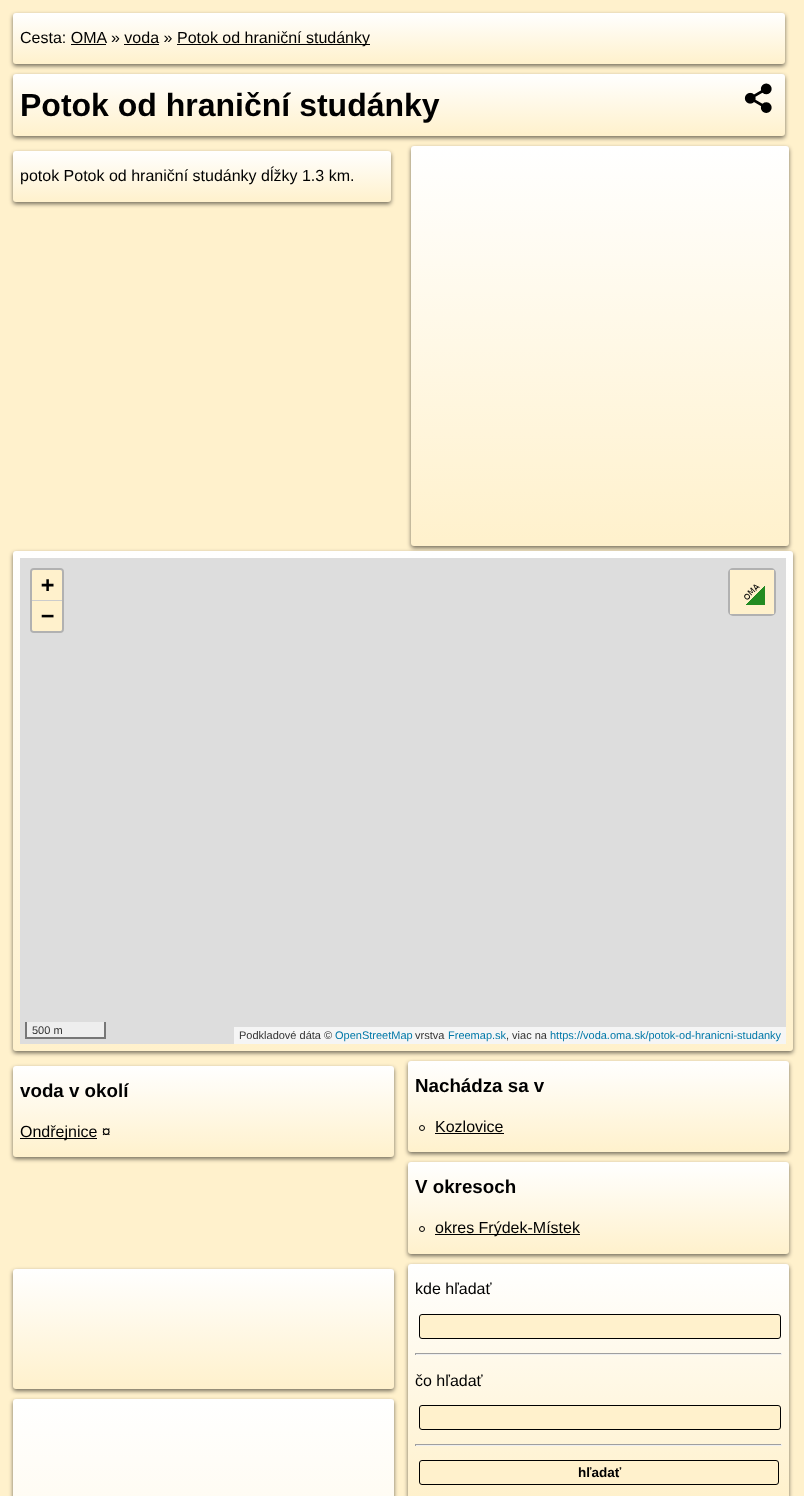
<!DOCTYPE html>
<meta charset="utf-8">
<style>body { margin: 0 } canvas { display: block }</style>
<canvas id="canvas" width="804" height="1496"></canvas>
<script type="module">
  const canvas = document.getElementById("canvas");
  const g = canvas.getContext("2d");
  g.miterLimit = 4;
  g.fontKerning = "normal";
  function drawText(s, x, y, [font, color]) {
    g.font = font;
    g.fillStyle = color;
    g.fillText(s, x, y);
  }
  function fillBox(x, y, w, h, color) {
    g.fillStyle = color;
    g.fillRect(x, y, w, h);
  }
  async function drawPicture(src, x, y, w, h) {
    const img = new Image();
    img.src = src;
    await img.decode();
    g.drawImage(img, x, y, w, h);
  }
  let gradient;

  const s1 = ["16px Liberation Sans", "#000000"];
  const s2 = ["bold 32px Liberation Sans", "#000000"];
  const s3 = ["bold 22px DejaVu Sans Mono", "#000000"];
  const s4 = ["11px Liberation Sans", "#333333"];
  const s5 = ["11px Liberation Sans", "#0078A8"];
  const s6 = ["bold 18.75px Liberation Sans", "#000000"];
  const s7 = ["bold 13.5px Liberation Sans", "#000000"];

  fillBox(0, 0, 804, 1496, "#FFF1CC");
  g.fillStyle = "rgba(0, 0, 0, 0.55)";
  g.filter = "blur(2px)";
  g.beginPath();
  g.roundRect(13, 15, 772, 51, 3);
  g.fill();
  g.filter = "none";
  gradient = g.createLinearGradient(399, 13, 399, 64);
  gradient.addColorStop(0, "#FFFFFF");
  gradient.addColorStop(1, "#FFF1CC");
  g.fillStyle = gradient;
  g.beginPath();
  g.roundRect(13, 13, 772, 51, 3);
  g.fill();
  drawText("Cesta: OMA", 20, 43, s1);
  drawText("» voda »", 111, 43, s1);
  fillBox(177, 44, 193, 1, "#000000");
  drawText("Potok od hraniční studánky", 177, 43, s1);
  fillBox(71, 44, 35, 1, "#000000");
  fillBox(124, 44, 35, 1, "#000000");
  g.fillStyle = "rgba(0, 0, 0, 0.55)";
  g.filter = "blur(2px)";
  g.beginPath();
  g.roundRect(13, 76, 772, 62, 3);
  g.fill();
  g.filter = "none";
  gradient = g.createLinearGradient(399, 74, 399, 136);
  gradient.addColorStop(0, "#FFFFFF");
  gradient.addColorStop(1, "#FFF1CC");
  g.fillStyle = gradient;
  g.beginPath();
  g.roundRect(13, 74, 772, 62, 3);
  g.fill();
  drawText("Potok od hraniční studánky", 20, 116, s2);
  await drawPicture("pic1.png", 744, 83, 28, 30);
  g.fillStyle = "rgba(0, 0, 0, 0.55)";
  g.filter = "blur(2px)";
  g.beginPath();
  g.roundRect(13, 153, 378, 51, 3);
  g.fill();
  g.filter = "none";
  gradient = g.createLinearGradient(202, 151, 202, 202);
  gradient.addColorStop(0, "#FFFFFF");
  gradient.addColorStop(1, "#FFF1CC");
  g.fillStyle = gradient;
  g.beginPath();
  g.roundRect(13, 151, 378, 51, 3);
  g.fill();
  drawText("potok Potok od hraniční studánky dĺžky 1.3 km.", 20, 181, s1);
  g.fillStyle = "rgba(0, 0, 0, 0.55)";
  g.filter = "blur(2px)";
  g.beginPath();
  g.roundRect(411, 148, 378, 400, 3);
  g.fill();
  g.filter = "none";
  gradient = g.createLinearGradient(600, 146, 600, 546);
  gradient.addColorStop(0, "#FFFFFF");
  gradient.addColorStop(1, "#FFF1CC");
  g.fillStyle = gradient;
  g.beginPath();
  g.roundRect(411, 146, 378, 400, 3);
  g.fill();
  g.fillStyle = "rgba(0, 0, 0, 0.55)";
  g.filter = "blur(2px)";
  g.beginPath();
  g.roundRect(13, 553, 780, 500, 3);
  g.fill();
  g.filter = "none";
  gradient = g.createLinearGradient(403, 551, 403, 1051);
  gradient.addColorStop(0, "#FFFFFF");
  gradient.addColorStop(1, "#FFF1CC");
  g.fillStyle = gradient;
  g.beginPath();
  g.roundRect(13, 551, 780, 500, 3);
  g.fill();
  fillBox(20, 558, 766, 486, "#DDDDDD");
  g.beginPath();
  g.roundRect(31, 569, 32, 63, 3);
  g.strokeStyle = "#B1B1B1";
  g.lineWidth = 2;
  g.stroke();
  g.fillStyle = "#FFF1CC";
  g.beginPath();
  g.roundRect(32, 570, 30, 31, [2, 2, 0, 0]);
  g.fill();
  fillBox(32, 600, 30, 1, "#CCCCCC");
  drawText("+", 41, 592, s3);
  g.fillStyle = "#FFF1CC";
  g.beginPath();
  g.roundRect(32, 601, 30, 30, [0, 0, 2, 2]);
  g.fill();
  drawText("−", 41, 623, s3);
  g.beginPath();
  g.roundRect(729, 569, 46, 46, 4);
  g.stroke();
  fillBox(730, 570, 44, 44, "#FFF1CC");
  await drawPicture("pic2.png", 744, 584, 21, 21);
  fillBox(27, 1022, 77, 15, "#EEEEEE");
  fillBox(104, 1022, 2, 17, "#777777");
  fillBox(25, 1037, 81, 2, "#777777");
  fillBox(25, 1022, 2, 17, "#777777");
  drawText("500 m", 32, 1034, s4);
  fillBox(234, 1027, 552, 17, "#F5F5F5");
  drawText("Podkladové dáta ©", 239, 1039, s4);
  drawText("OpenStreetMap", 335, 1039, s5);
  drawText("vrstva", 415, 1039, s4);
  drawText("Freemap.sk", 448, 1039, s5);
  drawText(", viac na", 506, 1039, s4);
  drawText("https://voda.oma.sk/potok-od-hranicni-studanky", 550, 1039, s5);
  g.fillStyle = "rgba(0, 0, 0, 0.55)";
  g.filter = "blur(2px)";
  g.beginPath();
  g.roundRect(13, 1068, 381, 91, 3);
  g.fill();
  g.filter = "none";
  gradient = g.createLinearGradient(204, 1066, 204, 1157);
  gradient.addColorStop(0, "#FFFFFF");
  gradient.addColorStop(1, "#FFF1CC");
  g.fillStyle = gradient;
  g.beginPath();
  g.roundRect(13, 1066, 381, 91, 3);
  g.fill();
  drawText("voda v okolí", 20, 1097, s6);
  fillBox(20, 1138, 77, 1, "#000000");
  drawText("Ondřejnice ¤", 20, 1137, s1);
  g.fillStyle = "rgba(0, 0, 0, 0.55)";
  g.filter = "blur(2px)";
  g.beginPath();
  g.roundRect(408, 1063, 381, 91, 3);
  g.fill();
  g.filter = "none";
  gradient = g.createLinearGradient(599, 1061, 599, 1152);
  gradient.addColorStop(0, "#FFFFFF");
  gradient.addColorStop(1, "#FFF1CC");
  g.fillStyle = gradient;
  g.beginPath();
  g.roundRect(408, 1061, 381, 91, 3);
  g.fill();
  drawText("Nachádza sa v", 415, 1092, s6);
  g.beginPath();
  g.arc(422, 1128, 2.5, 0, Math.PI * 2);
  g.strokeStyle = "#000000";
  g.lineWidth = 1;
  g.stroke();
  drawText("Kozlovice", 435, 1132, s1);
  fillBox(435, 1133, 69, 1, "#000000");
  g.fillStyle = "rgba(0, 0, 0, 0.55)";
  g.filter = "blur(2px)";
  g.beginPath();
  g.roundRect(408, 1164, 381, 92, 3);
  g.fill();
  g.filter = "none";
  gradient = g.createLinearGradient(599, 1162, 599, 1254);
  gradient.addColorStop(0, "#FFFFFF");
  gradient.addColorStop(1, "#FFF1CC");
  g.fillStyle = gradient;
  g.beginPath();
  g.roundRect(408, 1162, 381, 92, 3);
  g.fill();
  drawText("V okresoch", 415, 1193, s6);
  g.beginPath();
  g.arc(422, 1229, 2.5, 0, Math.PI * 2);
  g.stroke();
  fillBox(435, 1234, 145, 1, "#000000");
  drawText("okres Frýdek-Místek", 435, 1233, s1);
  g.fillStyle = "rgba(0, 0, 0, 0.55)";
  g.filter = "blur(2px)";
  g.beginPath();
  g.roundRect(13, 1271, 381, 120, 3);
  g.fill();
  g.filter = "none";
  gradient = g.createLinearGradient(204, 1269, 204, 1389);
  gradient.addColorStop(0, "#FFFFFF");
  gradient.addColorStop(1, "#FFF1CC");
  g.fillStyle = gradient;
  g.beginPath();
  g.roundRect(13, 1269, 381, 120, 3);
  g.fill();
  g.fillStyle = "rgba(0, 0, 0, 0.55)";
  g.filter = "blur(2px)";
  g.beginPath();
  g.roundRect(408, 1266, 381, 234, 3);
  g.fill();
  g.filter = "none";
  gradient = g.createLinearGradient(599, 1264, 599, 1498);
  gradient.addColorStop(0, "#FFFFFF");
  gradient.addColorStop(1, "#FFF1CC");
  g.fillStyle = gradient;
  g.beginPath();
  g.roundRect(408, 1264, 381, 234, 3);
  g.fill();
  drawText("kde hľadať", 415, 1294, s1);
  g.fillStyle = "#FFF1CC";
  g.beginPath();
  g.roundRect(419.5, 1314.5, 361, 24, 2.5);
  g.fill();
  g.stroke();
  fillBox(415, 1353, 367, 1, "#9F9F9F");
  fillBox(781, 1353, 1, 2, "#EEEEEE");
  fillBox(415, 1354, 367, 1, "#EEEEEE");
  fillBox(415, 1353, 1, 2, "#9F9F9F");
  drawText("čo hľadať", 415, 1386, s1);
  g.fillStyle = "#FFF1CC";
  g.beginPath();
  g.roundRect(419.5, 1405.5, 361, 24, 2.5);
  g.fill();
  g.stroke();
  fillBox(415, 1444, 367, 1, "#9F9F9F");
  fillBox(781, 1444, 1, 2, "#EEEEEE");
  fillBox(415, 1445, 367, 1, "#EEEEEE");
  fillBox(415, 1444, 1, 2, "#9F9F9F");
  g.fillStyle = "#FFF1CC";
  g.beginPath();
  g.roundRect(419.5, 1460.5, 359, 24, 2.5);
  g.fill();
  g.stroke();
  drawText("hľadať", 578, 1477, s7);
  g.fillStyle = "rgba(0, 0, 0, 0.55)";
  g.filter = "blur(2px)";
  g.beginPath();
  g.roundRect(13, 1401, 381, 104, 3);
  g.fill();
  g.filter = "none";
  gradient = g.createLinearGradient(203, 1399, 204, 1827);
  gradient.addColorStop(0, "#FFFFFF");
  gradient.addColorStop(1, "#FFF1CC");
  g.fillStyle = gradient;
  g.beginPath();
  g.roundRect(13, 1399, 381, 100, 3);
  g.fill();
</script>
